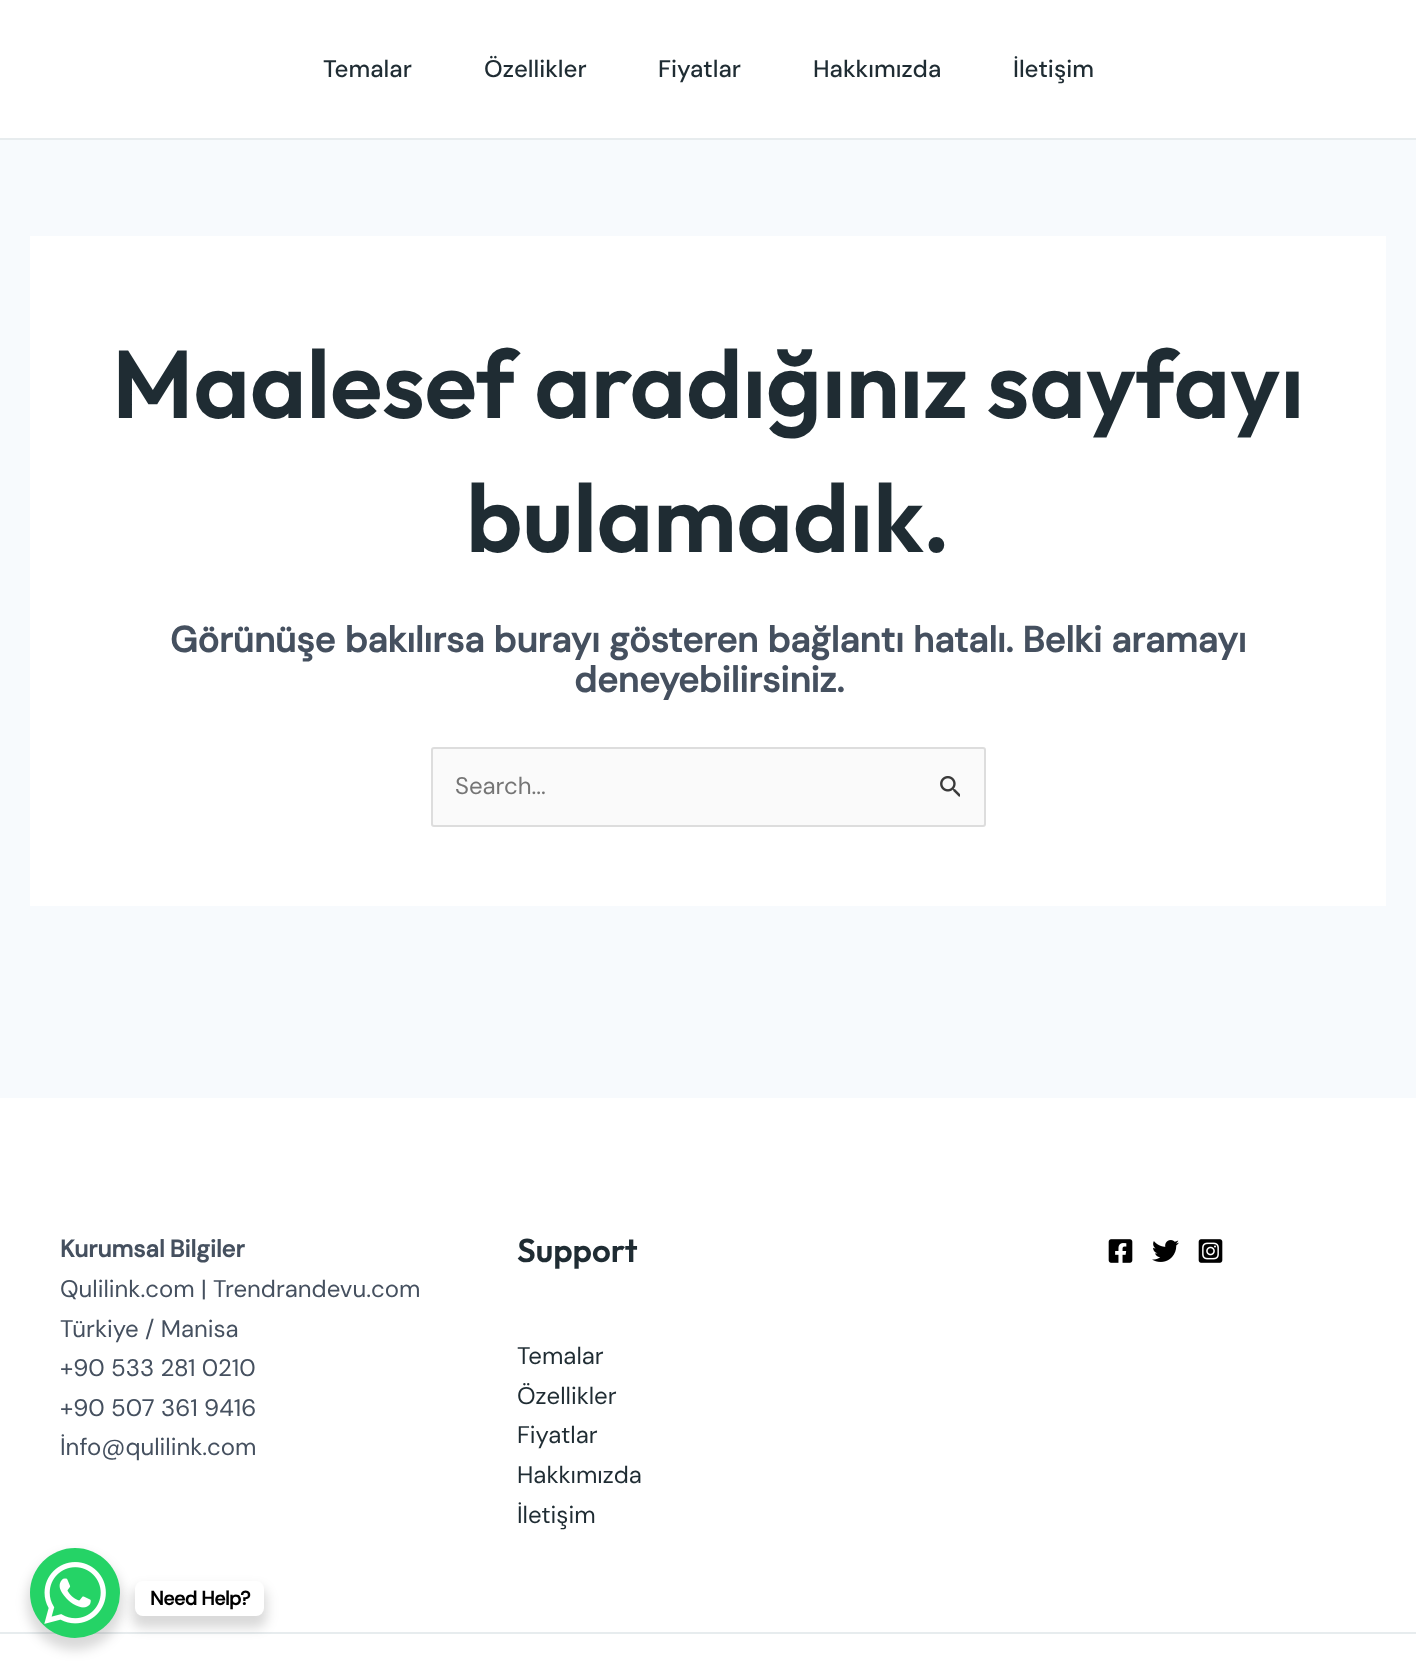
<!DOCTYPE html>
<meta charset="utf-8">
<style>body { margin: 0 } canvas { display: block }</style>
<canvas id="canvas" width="1416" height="1668"></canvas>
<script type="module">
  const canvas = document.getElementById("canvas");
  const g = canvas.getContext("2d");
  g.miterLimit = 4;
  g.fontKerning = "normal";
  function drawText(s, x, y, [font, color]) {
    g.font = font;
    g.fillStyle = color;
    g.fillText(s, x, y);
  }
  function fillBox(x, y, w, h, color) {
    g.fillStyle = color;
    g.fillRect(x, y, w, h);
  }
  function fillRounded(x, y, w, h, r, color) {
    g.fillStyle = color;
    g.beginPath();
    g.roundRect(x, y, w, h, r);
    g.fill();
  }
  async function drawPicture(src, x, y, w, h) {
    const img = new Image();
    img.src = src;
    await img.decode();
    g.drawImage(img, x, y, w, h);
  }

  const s1 = ["500 24px DM Sans", "#1F2C33"];
  const s2 = ["100 96px Outfit", "#1F2C33"];
  const s3 = ["bold 36px DM Sans", "#45505F"];
  const s4 = ["24px DM Sans", "#757575"];
  const s5 = ["bold 24px DM Sans", "#45505F"];
  const s6 = ["24px DM Sans", "#45505F"];
  const s7 = ["100 33px Outfit", "#1F2C33"];
  const s8 = ["24px DM Sans", "#1F2C33"];
  const s9 = ["bold 19.5px DM Sans", "#000000"];

  fillBox(0, 0, 1416, 1668, "#F7FAFD");
  fillBox(0, 0, 1416, 138, "#FFFFFF");
  fillBox(0, 138, 1416, 2, "#E7ECEE");
  drawText("Temalar", 323, 77, s1);
  drawText("Özellikler", 484, 77, s1);
  drawText("Fiyatlar", 658, 77, s1);
  drawText("Hakkımızda", 813, 77, s1);
  drawText("İletişim", 1013, 77, s1);
  fillBox(30, 236, 1356, 670, "#FFFFFF");
  drawText("Maalesef aradığınız sayfayı", 112, 418, s2);
  drawText("bulamadık.", 466, 552, s2);
  drawText("Görünüşe bakılırsa burayı gösteren bağlantı hatalı. Belki aramayı", 170, 652, s3);
  drawText("deneyebilirsiniz.", 574, 692, s3);
  g.fillStyle = "#FAFAFA";
  g.beginPath();
  g.roundRect(432, 748, 553, 78, 2);
  g.fill();
  g.strokeStyle = "#DDDDDD";
  g.lineWidth = 2;
  g.stroke();
  drawText("Search...", 455, 794, s4);
  await drawPicture("pic1.png", 940, 776, 20, 21);
  fillBox(0, 1098, 1416, 570, "#FFFFFF");
  g.wordSpacing = "-1px";
  drawText("Kurumsal Bilgiler", 60, 1257, s5);
  g.wordSpacing = "0px";
  drawText("Qulilink.com | Trendrandevu.com", 60, 1297, s6);
  drawText("Türkiye / Manisa", 60, 1337, s6);
  drawText("+90 533 281 0210", 60, 1376, s6);
  drawText("+90 507 361 9416", 60, 1416, s6);
  drawText("İnfo@qulilink.com", 60, 1455, s6);
  drawText("Support", 517, 1262, s7);
  drawText("Temalar", 517, 1364, s8);
  drawText("Özellikler", 517, 1404, s8);
  drawText("Fiyatlar", 517, 1443, s8);
  drawText("Hakkımızda", 517, 1483, s8);
  drawText("İletişim", 517, 1523, s8);
  await drawPicture("pic2.png", 1108, 1239, 25, 24);
  await drawPicture("pic3.png", 1152, 1240, 27, 22);
  await drawPicture("pic4.png", 1198, 1239, 25, 24);
  fillBox(0, 1632, 1416, 2, "#E7ECEE");
  g.fillStyle = "rgba(0, 0, 0, 0.15)";
  g.filter = "blur(6px)";
  g.beginPath();
  g.roundRect(27, 1554, 96, 96, 48);
  g.fill();
  g.filter = "none";
  g.fillStyle = "#25D366";
  g.beginPath();
  g.arc(75, 1593, 45, 0, Math.PI * 2);
  g.fill();
  await drawPicture("pic5.png", 44, 1562, 62, 62);
  g.fillStyle = "rgba(0, 0, 0, 0.15)";
  g.filter = "blur(6px)";
  g.beginPath();
  g.roundRect(132, 1587, 135, 41, 11);
  g.fill();
  g.filter = "none";
  fillRounded(135, 1581, 129, 35, 8, "#FFFFFF");
  g.letterSpacing = "-0.5px";
  drawText("Need Help?", 150, 1605, s9);
</script>
